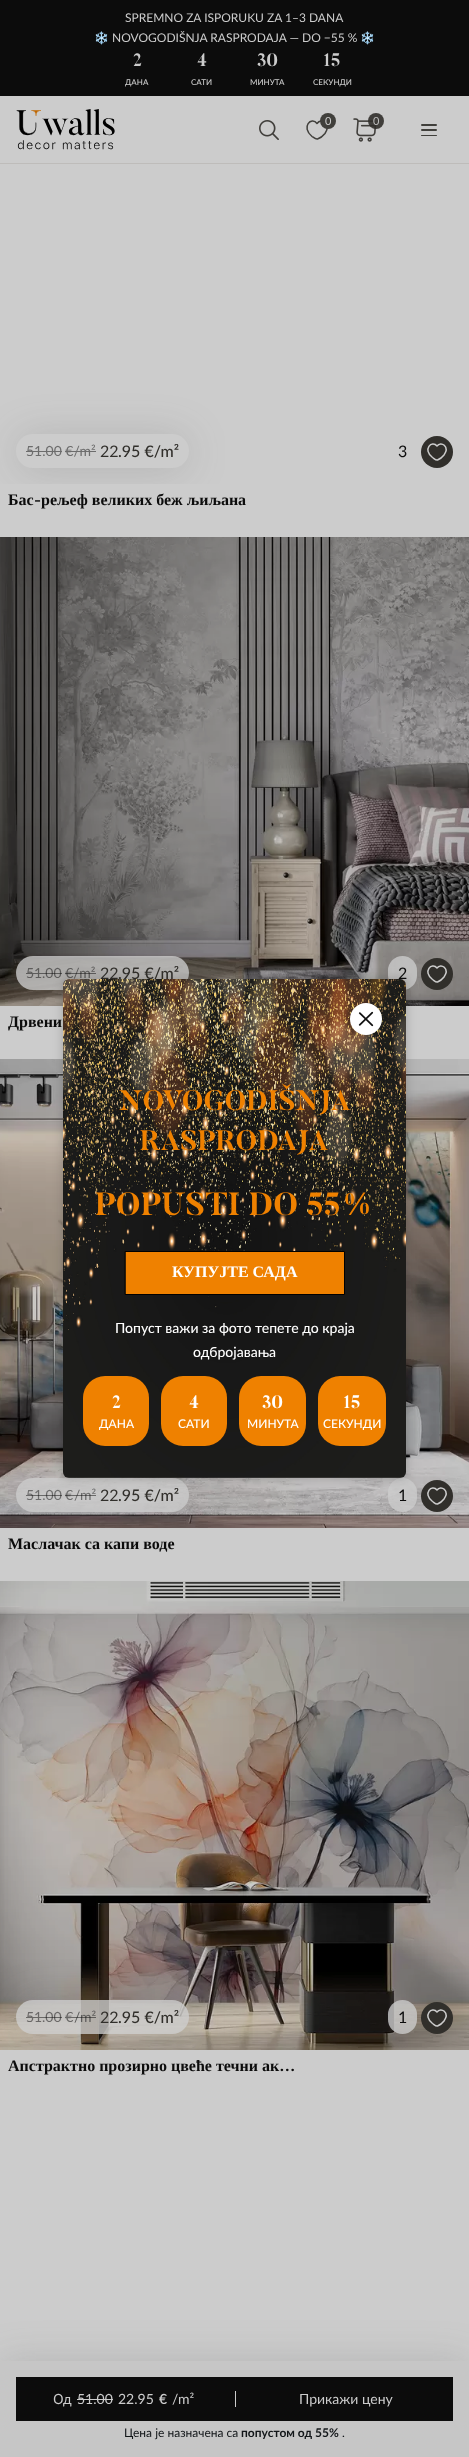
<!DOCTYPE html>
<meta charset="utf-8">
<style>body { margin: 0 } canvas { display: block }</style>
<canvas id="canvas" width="469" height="2457"></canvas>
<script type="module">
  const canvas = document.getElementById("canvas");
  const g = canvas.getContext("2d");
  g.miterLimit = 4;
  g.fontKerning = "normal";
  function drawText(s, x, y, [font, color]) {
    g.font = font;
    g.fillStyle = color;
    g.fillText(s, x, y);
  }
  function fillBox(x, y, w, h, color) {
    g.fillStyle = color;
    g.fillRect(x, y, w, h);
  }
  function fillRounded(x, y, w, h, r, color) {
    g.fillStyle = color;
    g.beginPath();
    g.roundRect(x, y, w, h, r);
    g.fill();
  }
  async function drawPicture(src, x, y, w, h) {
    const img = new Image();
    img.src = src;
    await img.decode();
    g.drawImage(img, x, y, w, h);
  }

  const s1 = ["12px Lato", "#CCCCCC"];
  const s2 = ["12px Noto Color Emoji", "#CCCCCC"];
  const s3 = ["bold 18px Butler", "#CCCCCC"];
  const s4 = ["500 8px Lato", "#CCCCCC"];
  const s5 = ["11px Lato", "#CCCCCC"];
  const s6 = ["11px Lato", "#BEBEBE"];
  const s7 = ["14px Lato", "#6C6C6C"];
  const s8 = ["16px Lato", "#312F2B"];
  const s9 = ["500 16px Lato", "#312F2B"];
  const s10 = ["16px Lato", "#0C0C0C"];
  const s11 = ["bold 16px Liberation Serif", "#0C0C0C"];
  const s12 = ["bold 16px Butler", "#0C0C0C"];
  const s13 = ["14px Lato", "#5D5C5B"];
  const s14 = ["14px Lato", "#696766"];
  const s15 = ["14px Noto Sans", "#CCCCCC"];
  const s16 = ["14px Lato", "#CCCCCC"];
  const s17 = ["600 14px Lato", "#CCCCCC"];
  const s18 = ["12px Lato", "#121619"];
  const s19 = ["bold 12px Lato", "#121619"];
  const s20 = ["bold 28px Butler", "#EF8100"];
  const s21 = ["bold 32px Butler", "#EF8100"];
  const s22 = ["bold 16px Liberation Serif", "#FFFFFF"];
  const s23 = ["500 14px Lato", "#FFFFFF"];
  const s24 = ["bold 18px Butler", "#FFFFFF"];
  const s25 = ["500 12px Lato", "#FFFFFF"];

  fillBox(0, 0, 469, 2457, "#CCCCCC");
  fillBox(0, 0, 469, 96, "#0C0C0C");
  drawText("SPREMNO ZA ISPORUKU ZA 1–3 DANA", 125, 22, s1);
  drawText("❄️", 94, 42, s2);
  drawText("NOVOGODIŠNJA RASPRODAJA — DO −55 %", 112, 42, s1);
  drawText("❄️", 360, 42, s2);
  drawText("2", 133, 66, s3);
  drawText("ДАНА", 125, 85, s4);
  drawText("4", 197, 66, s3);
  drawText("САТИ", 191, 85, s4);
  drawText("30", 257, 66, s3);
  drawText("МИНУТА", 250, 85, s4);
  drawText("15", 323, 66, s3);
  drawText("СЕКУНДИ", 313, 85, s4);
  fillBox(0, 163, 469, 1, "#BEBCBA");
  await drawPicture("pic1.png", 16, 109, 99, 41);
  await drawPicture("pic2.png", 259, 120, 20, 20);
  g.beginPath();
  g.moveTo(317.5, 139);
  g.bezierCurveTo(316, 139.5, 313.5, 137.5, 312, 136.5);
  g.bezierCurveTo(300.5, 127, 311.5, 116, 317, 123.5);
  g.bezierCurveTo(321.5, 117, 331.5, 124, 325, 133.5);
  g.bezierCurveTo(323, 136, 320.5, 138, 317.5, 139);
  g.closePath();
  g.strokeStyle = "#403F3B";
  g.lineWidth = 1.5;
  g.lineCap = "round";
  g.lineJoin = "round";
  g.stroke();
  g.fillStyle = "#403F3B";
  g.beginPath();
  g.arc(328, 121, 8, 0, Math.PI * 2);
  g.fill();
  drawText("0", 325, 125, s5);
  await drawPicture("pic3.png", 353, 118, 24, 24);
  g.fillStyle = "rgba(49, 47, 43, 0.9)";
  g.beginPath();
  g.arc(376, 121, 8, 0, Math.PI * 2);
  g.fill();
  drawText("0", 373, 125, s6);
  fillRounded(421, 124, 16, 2, 1, "#403F3B");
  fillRounded(421, 129, 16, 2, 1, "#403F3B");
  fillRounded(421, 135, 16, 1, 0.5, "#403F3B");
  g.save();
  g.beginPath();
  g.rect(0, 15, 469, 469);
  g.clip();
  g.beginPath();
  g.moveTo(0, 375);
  g.lineTo(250, 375);
  g.lineTo(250, 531);
  g.lineTo(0, 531);
  g.closePath();
  g.moveTo(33, 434);
  g.lineTo(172, 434);
  g.bezierCurveTo(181.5, 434, 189, 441.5, 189, 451);
  g.bezierCurveTo(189, 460.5, 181.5, 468, 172, 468);
  g.lineTo(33, 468);
  g.bezierCurveTo(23.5, 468, 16, 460.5, 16, 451);
  g.bezierCurveTo(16, 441.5, 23.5, 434, 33, 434);
  g.closePath();
  g.clip("evenodd");
  g.fillStyle = "rgba(75, 75, 75, 0.2)";
  g.filter = "blur(20px)";
  g.beginPath();
  g.roundRect(16, 436, 173, 34, 17);
  g.fill();
  g.filter = "none";
  g.restore();
  drawText("51.00 €/m²", 26, 456, s7);
  fillBox(26, 451, 36, 1, "#6C6C6C");
  fillBox(65, 451, 31, 1, "#6C6C6C");
  drawText("22", 100, 457, s8);
  drawText(".95 €/m²", 118, 457, s9);
  drawText("3", 398, 457, s10);
  g.fillStyle = "#312F2B";
  g.beginPath();
  g.arc(437, 452, 16, 0, Math.PI * 2);
  g.fill();
  g.beginPath();
  g.moveTo(437.5, 460);
  g.bezierCurveTo(436, 460.5, 434, 458.5, 432.5, 457.5);
  g.bezierCurveTo(422, 449.5, 432, 439.5, 437, 446);
  g.bezierCurveTo(441, 440.5, 450, 446.5, 444, 455);
  g.bezierCurveTo(442.5, 457, 440, 459, 437.5, 460);
  g.closePath();
  g.strokeStyle = "#CCCCCC";
  g.stroke();
  drawText("Бас", 8, 505, s11);
  drawText("-", 34, 505, s12);
  drawText("рељеф великих беж љиљана", 41, 505, s11);
  await drawPicture("pic4.png", 0, 537, 469, 469);
  fillRounded(16, 956, 173, 34, 17, "rgba(204, 204, 204, 0.79)");
  drawText("51", 26, 978, s13);
  fillBox(26, 973, 16, 1, "#5D5C5B");
  drawText(".00 €/m²", 42, 978, s13);
  fillBox(42, 973, 20, 1, "rgba(12, 12, 12, 0.5)");
  fillBox(65, 973, 9, 1, "rgba(12, 12, 12, 0.5)");
  fillBox(74, 973, 22, 1, "rgba(12, 12, 12, 0.5)");
  drawText("22", 100, 979, s8);
  drawText(".95 €/m²", 118, 979, s9);
  fillRounded(388, 956, 29, 34, 14.5, "rgba(204, 204, 204, 0.79)");
  drawText("2", 398, 979, s10);
  g.fillStyle = "#312F2B";
  g.beginPath();
  g.arc(437, 974, 16, 0, Math.PI * 2);
  g.fill();
  g.beginPath();
  g.moveTo(437.5, 982);
  g.bezierCurveTo(436, 982.5, 434, 980.5, 432.5, 979.5);
  g.bezierCurveTo(422, 971.5, 432, 961.5, 437, 968);
  g.bezierCurveTo(441, 962.5, 450, 968.5, 444, 977);
  g.bezierCurveTo(442.5, 979, 440, 981, 437.5, 982);
  g.closePath();
  g.stroke();
  drawText("Дрвени", 8, 1027, s11);
  await drawPicture("pic5.png", 0, 1059, 469, 469);
  fillRounded(16, 1478, 173, 34, 17, "rgba(204, 204, 204, 0.79)");
  drawText("51.00", 26, 1500, s7);
  fillBox(26, 1495, 16, 1, "rgba(12, 12, 12, 0.5)");
  drawText("€", 65, 1500, s7);
  fillBox(65, 1495, 9, 1, "rgba(12, 12, 12, 0.5)");
  drawText("/m²", 74, 1500, s7);
  fillBox(74, 1495, 22, 1, "rgba(12, 12, 12, 0.5)");
  fillBox(42, 1495, 20, 1, "rgba(12, 12, 12, 0.5)");
  drawText("22", 100, 1501, s8);
  drawText(".95 €/m²", 118, 1501, s9);
  fillRounded(388, 1478, 29, 34, 14.5, "rgba(204, 204, 204, 0.79)");
  drawText("1", 398, 1501, s10);
  g.fillStyle = "#312F2B";
  g.beginPath();
  g.arc(437, 1496, 16, 0, Math.PI * 2);
  g.fill();
  g.beginPath();
  g.moveTo(437.5, 1504);
  g.bezierCurveTo(436, 1504.5, 434, 1502.5, 432.5, 1501.5);
  g.bezierCurveTo(422, 1493.5, 432, 1483.5, 437, 1490);
  g.bezierCurveTo(441, 1484.5, 450, 1490.5, 444, 1499);
  g.bezierCurveTo(442.5, 1501, 440, 1503, 437.5, 1504);
  g.closePath();
  g.stroke();
  drawText("Маслачак са капи воде", 8, 1549, s11);
  await drawPicture("pic6.png", 0, 1581, 469, 469);
  g.save();
  g.beginPath();
  g.rect(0, 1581, 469, 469);
  g.clip();
  g.beginPath();
  g.moveTo(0, 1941);
  g.lineTo(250, 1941);
  g.lineTo(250, 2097);
  g.lineTo(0, 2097);
  g.closePath();
  g.moveTo(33, 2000);
  g.lineTo(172, 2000);
  g.bezierCurveTo(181.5, 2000, 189, 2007.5, 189, 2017);
  g.bezierCurveTo(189, 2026.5, 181.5, 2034, 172, 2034);
  g.lineTo(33, 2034);
  g.bezierCurveTo(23.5, 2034, 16, 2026.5, 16, 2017);
  g.bezierCurveTo(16, 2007.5, 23.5, 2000, 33, 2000);
  g.closePath();
  g.clip("evenodd");
  g.fillStyle = "rgba(75, 75, 75, 0.2)";
  g.filter = "blur(20px)";
  g.beginPath();
  g.roundRect(16, 2002, 173, 34, 17);
  g.fill();
  g.filter = "none";
  g.restore();
  fillRounded(16, 2000, 173, 34, 17, "rgba(204, 204, 204, 0.79)");
  drawText("51", 26, 2022, s14);
  fillBox(26, 2017, 16, 1, "#6A6866");
  drawText(".00 €", 42, 2022, s14);
  fillBox(42, 2017, 20, 1, "rgba(12, 12, 12, 0.5)");
  drawText("/m²", 74, 2022, s13);
  fillBox(74, 2017, 22, 1, "rgba(12, 12, 12, 0.5)");
  fillBox(65, 2017, 9, 1, "#686766");
  drawText("22", 100, 2023, s8);
  drawText(".95 €/m²", 118, 2023, s9);
  fillRounded(388, 2000, 29, 34, 14.5, "rgba(204, 204, 204, 0.79)");
  drawText("1", 398, 2023, s10);
  g.fillStyle = "#312F2B";
  g.beginPath();
  g.arc(437, 2018, 16, 0, Math.PI * 2);
  g.fill();
  g.beginPath();
  g.moveTo(437.5, 2026);
  g.bezierCurveTo(436, 2026.5, 434, 2024.5, 432.5, 2023.5);
  g.bezierCurveTo(422, 2015.5, 432, 2005.5, 437, 2012);
  g.bezierCurveTo(441, 2006.5, 450, 2012.5, 444, 2021);
  g.bezierCurveTo(442.5, 2023, 440, 2025, 437.5, 2026);
  g.closePath();
  g.stroke();
  drawText("Апстрактно прозирно цвеће течни ак…", 8, 2071, s11);
  g.fillStyle = "rgba(75, 75, 75, 0.2)";
  g.filter = "blur(20px)";
  g.beginPath();
  g.rect(0, 2363, 469, 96);
  g.fill();
  g.filter = "none";
  fillBox(0, 2361, 469, 96, "#C6C6C6");
  fillBox(16, 2377, 437, 44, "#0C0C0C");
  drawText("О", 53, 2404, s15);
  drawText("д", 63, 2404, s16);
  drawText("51.00", 77, 2404, s16);
  fillBox(77, 2399, 36, 1, "#CCCCCC");
  drawText("22.95", 118, 2404, s16);
  drawText("€", 159, 2404, s17);
  drawText("/m²", 172, 2404, s16);
  fillBox(235, 2391, 1, 16, "#CCCCCC");
  drawText("Прикажи цену", 299, 2404, s16);
  drawText("Цена је назначена са", 124, 2437, s18);
  drawText("попустом од 55%", 241, 2437, s19);
  drawText(".", 342, 2437, s18);
  g.fillStyle = "rgba(0, 0, 0, 0.16)";
  g.filter = "blur(5px)";
  g.beginPath();
  g.roundRect(62, 978, 345, 501, 7);
  g.fill();
  g.filter = "none";
  await drawPicture("pic7.png", 63, 979, 343, 499);
  g.fillStyle = "#FFFFFF";
  g.beginPath();
  g.arc(366, 1019, 16, 0, Math.PI * 2);
  g.fill();
  await drawPicture("pic8.png", 358, 1011, 16, 16);
  drawText("NOVOGODIŠNJA", 119, 1110, s20);
  drawText("RASPRODAJA", 140, 1150, s20);
  drawText("POPUSTI DO 55%", 95, 1215, s21);
  g.beginPath();
  g.rect(125.5, 1251.5, 219, 43);
  g.fill();
  g.strokeStyle = "#000000";
  g.lineWidth = 1;
  g.lineJoin = "miter";
  g.stroke();
  drawText("КУПУЈТЕ САДА", 172, 1277, s22);
  drawText("Попуст важи за фото тепете до краја", 115, 1333, s23);
  drawText("одбројавања", 193, 1357, s23);
  fillRounded(83, 1376, 66, 70, 22, "#EF8100");
  drawText("2", 112, 1408, s24);
  drawText("ДАНА", 99, 1428, s25);
  fillRounded(161, 1376, 66, 70, 22, "#EF8100");
  drawText("4", 189, 1408, s24);
  drawText("САТИ", 178, 1428, s25);
  fillRounded(239, 1376, 67, 70, 22, "#EF8100");
  drawText("30", 262, 1408, s24);
  drawText("МИНУТА", 247, 1428, s25);
  fillRounded(318, 1376, 68, 70, 22, "#EF8100");
  drawText("15", 343, 1408, s24);
  drawText("СЕКУНДИ", 323, 1428, s25);
</script>
